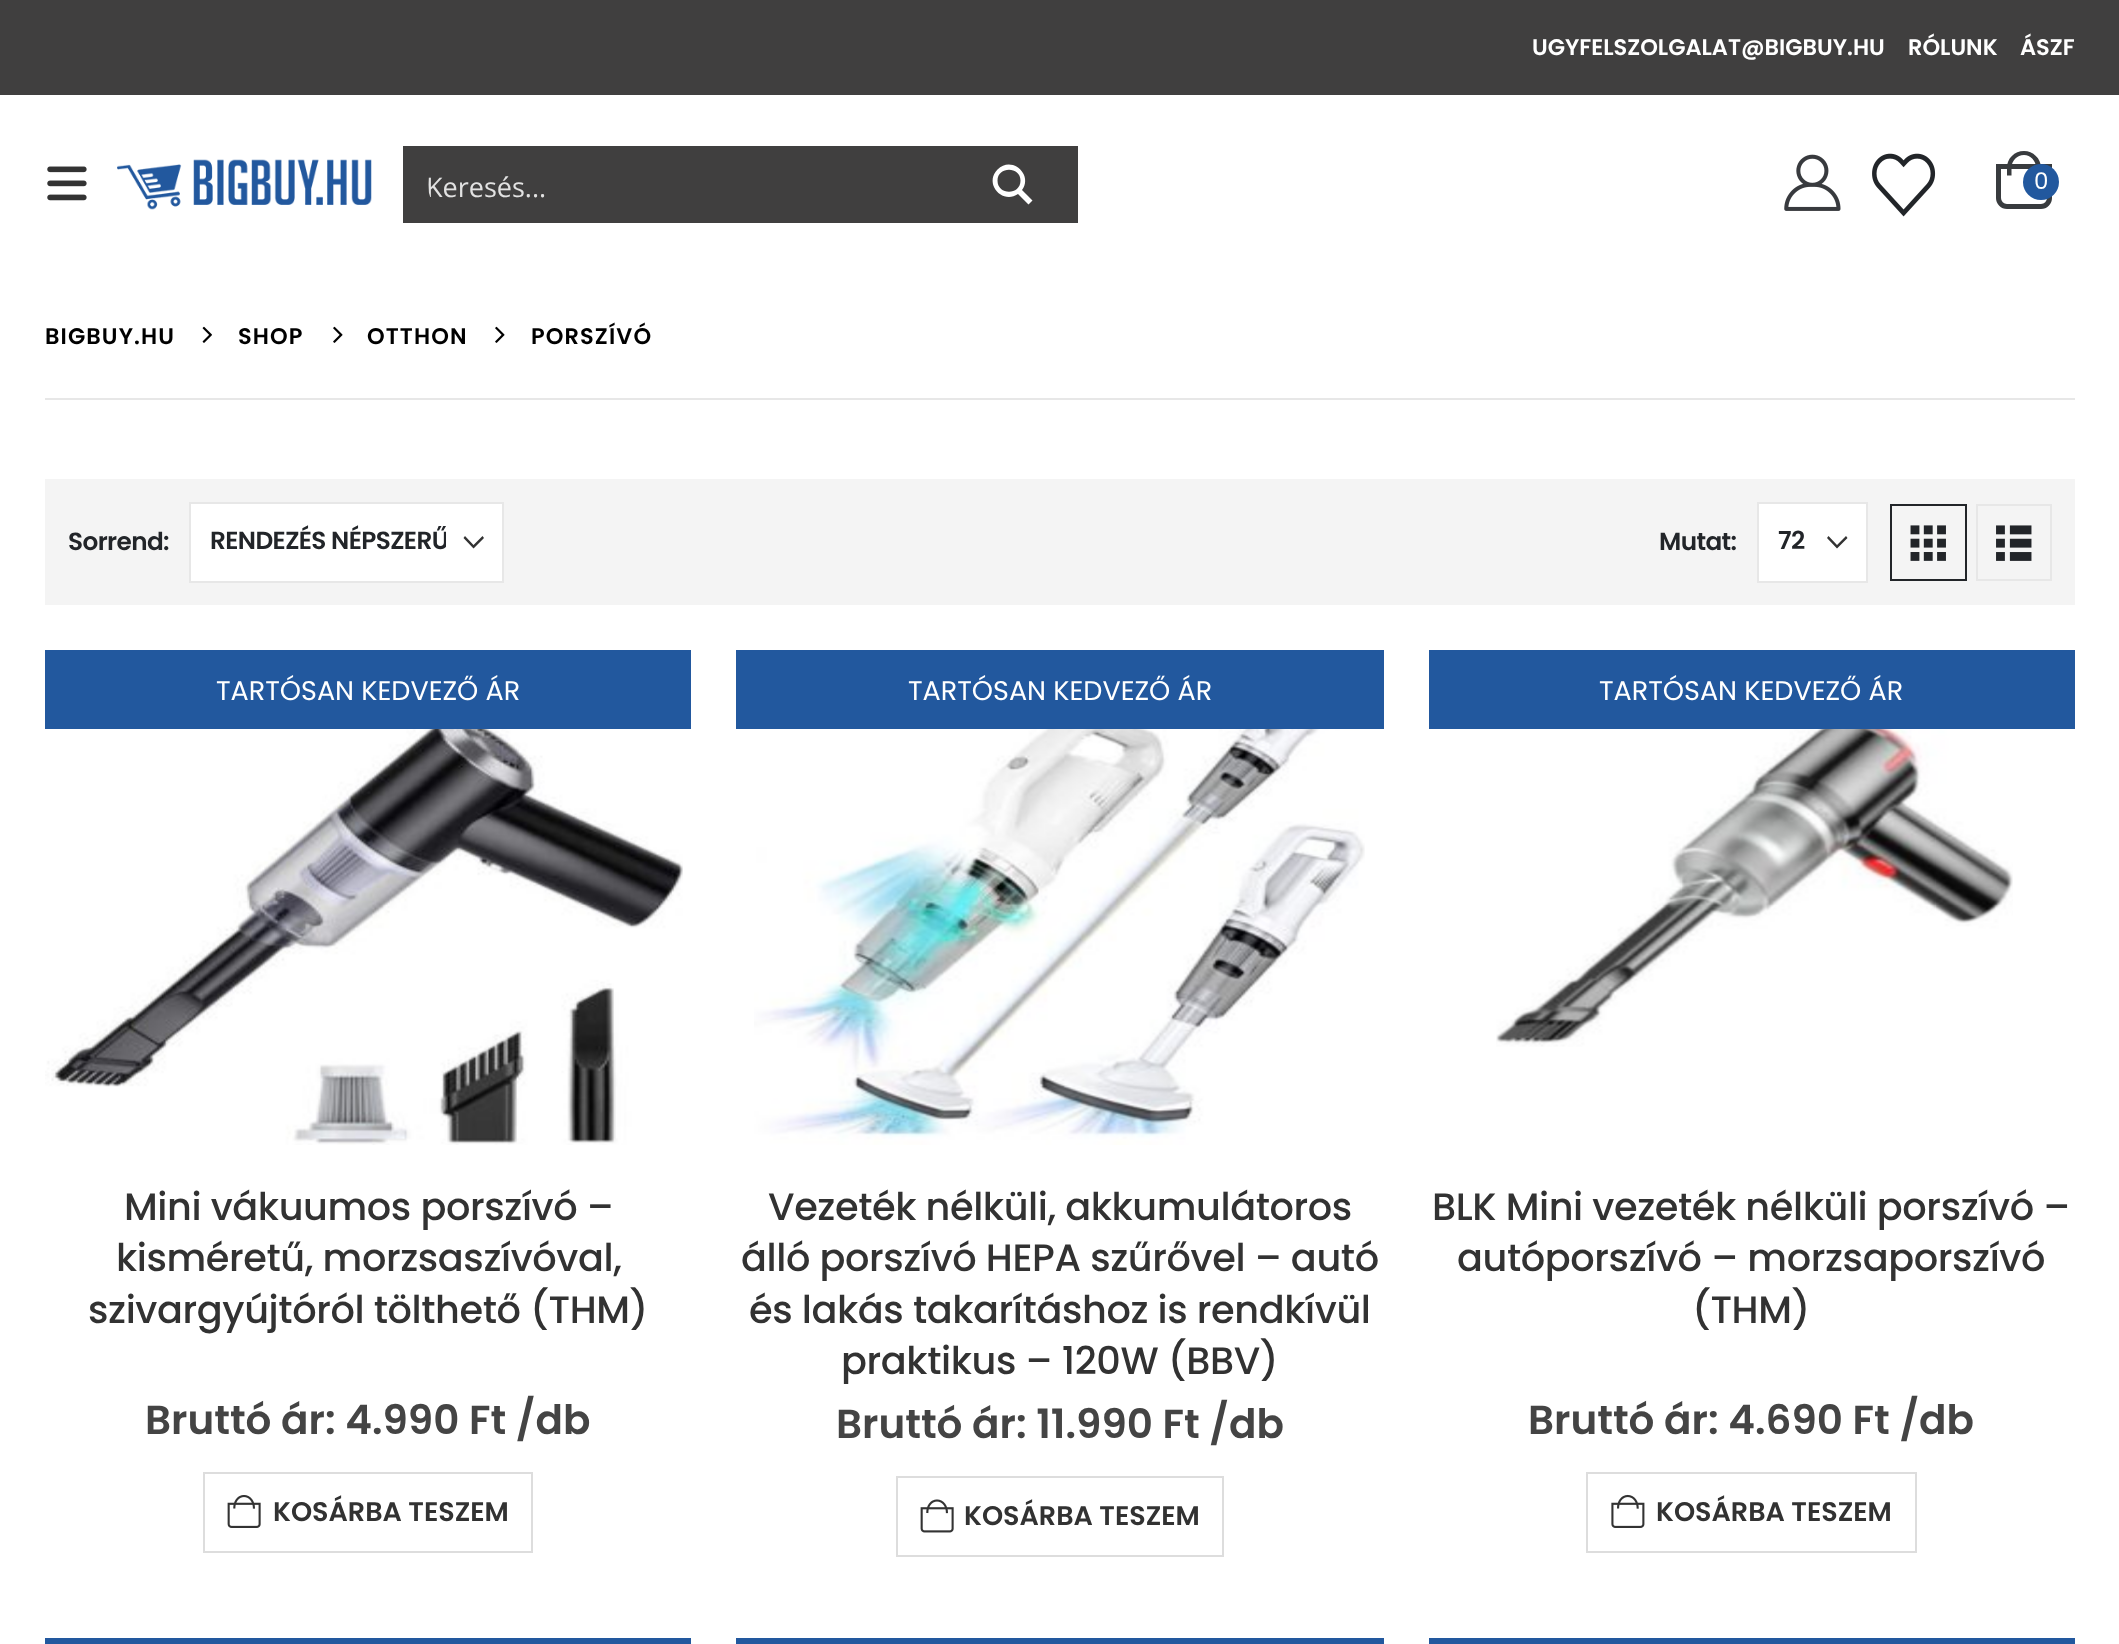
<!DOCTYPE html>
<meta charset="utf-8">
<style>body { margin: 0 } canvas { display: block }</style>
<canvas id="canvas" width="2119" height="1644"></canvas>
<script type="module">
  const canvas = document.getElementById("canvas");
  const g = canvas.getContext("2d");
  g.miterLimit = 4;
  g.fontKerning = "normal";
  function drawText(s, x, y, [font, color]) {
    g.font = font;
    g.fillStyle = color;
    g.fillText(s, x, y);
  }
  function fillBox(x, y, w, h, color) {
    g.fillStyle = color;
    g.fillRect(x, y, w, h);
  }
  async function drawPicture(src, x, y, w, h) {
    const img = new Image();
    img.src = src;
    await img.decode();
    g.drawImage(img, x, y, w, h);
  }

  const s1 = ["600 22.5px Poppins", "#FFFFFF"];
  const s2 = ["27px Open Sans", "#E2E2E2"];
  const s3 = ["23px Poppins", "#FFFFFF"];
  const s4 = ["600 22.5px Poppins", "#000000"];
  const s5 = ["600 24.75px Poppins", "#222529"];
  const s6 = ["27px Poppins", "#FFFFFF"];
  const s7 = ["500 38.25px Poppins", "#323232"];
  const s8 = ["600 40.5px Poppins", "#444444"];
  const s9 = ["600 27px Poppins", "#323232"];

  fillBox(0, 0, 2119, 1644, "#FFFFFF");
  fillBox(0, 0, 2119, 95, "#403F3F");
  drawText("UGYFELSZOLGALAT@BIGBUY.HU", 1532, 55, s1);
  drawText("RÓLUNK", 1908, 55, s1);
  drawText("ÁSZF", 2020, 55, s1);
  await drawPicture("pic1.png", 47, 166, 40, 35);
  await drawPicture("pic2.png", 117, 159, 255, 51);
  fillBox(403, 146, 675, 77, "#403F3F");
  g.save();
  g.beginPath();
  g.roundRect(428, 144, 499, 81, [40.5, 0, 0, 40.5]);
  g.clip();
  drawText("Keresés...", 426, 197, s2);
  g.restore();
  g.fillStyle = "#FFFFFF";
  g.beginPath();
  g.moveTo(1032.5, 200.5);
  g.lineTo(1022, 190);
  g.bezierCurveTo(1033.5, 174.5, 1011.5, 155, 997.5, 169.5);
  g.bezierCurveTo(983.5, 183.5, 1002.5, 205, 1018, 194);
  g.lineTo(1028.5, 204.5);
  g.closePath();
  g.moveTo(997.5, 180.5);
  g.bezierCurveTo(997.5, 166, 1020.5, 166, 1020.5, 180.5);
  g.bezierCurveTo(1020.5, 195.5, 997.5, 195.5, 997.5, 180.5);
  g.closePath();
  g.fill();
  await drawPicture("pic3.png", 1784, 154, 57, 57);
  await drawPicture("pic4.png", 1872, 153, 64, 64);
  g.beginPath();
  g.roundRect(1998.5, 166.5, 51, 40, [0, 0, 8.5, 8.5]);
  g.strokeStyle = "#383B3E";
  g.lineWidth = 5;
  g.stroke();
  g.fillStyle = "#383B3E";
  g.beginPath();
  g.moveTo(2024, 151);
  g.bezierCurveTo(2033, 151, 2041, 158.5, 2041, 167.5);
  g.lineTo(2041, 175.5);
  g.lineTo(2007, 175.5);
  g.lineTo(2007, 167.5);
  g.bezierCurveTo(2007, 158.5, 2014.5, 151, 2024, 151);
  g.closePath();
  g.moveTo(2024, 155);
  g.bezierCurveTo(2030.5, 155, 2036, 161, 2036, 167.5);
  g.lineTo(2036, 175.5);
  g.lineTo(2011.5, 175.5);
  g.lineTo(2011.5, 167.5);
  g.bezierCurveTo(2011.5, 161, 2017, 155, 2024, 155);
  g.closePath();
  g.fill("evenodd");
  g.fillStyle = "#22589E";
  g.beginPath();
  g.arc(2041, 182, 18, 0, Math.PI * 2);
  g.fill();
  drawText("0", 2034, 189, s3);
  fillBox(45, 398, 2030, 2, "#E7E7E7");
  g.letterSpacing = "1.1px";
  drawText("BIGBUY.HU", 45, 344, s4);
  await drawPicture("pic5.png", 202, 326, 10, 17);
  drawText("SHOP", 238, 344, s4);
  await drawPicture("pic6.png", 333, 326, 10, 17);
  drawText("OTTHON", 367, 344, s4);
  await drawPicture("pic6.png", 495, 326, 10, 17);
  drawText("PORSZÍVÓ", 531, 344, s4);
  fillBox(45, 479, 2030, 126, "#F4F4F4");
  g.letterSpacing = "-0.6px";
  drawText("Sorrend:", 68, 550, s5);
  fillBox(191, 504, 311, 77, "#FFFFFF");
  g.fillStyle = "#333333";
  g.beginPath();
  g.moveTo(474, 548);
  g.lineTo(484, 538);
  g.lineTo(482.5, 536);
  g.lineTo(473.5, 545);
  g.lineTo(465, 536);
  g.lineTo(463.5, 538);
  g.lineTo(473.5, 548.5);
  g.closePath();
  g.fill("evenodd");
  g.strokeStyle = "#E7E7E7";
  g.lineWidth = 2;
  g.strokeRect(190, 503, 313, 79);
  g.save();
  g.beginPath();
  g.rect(209, 524, 237, 36);
  g.clip();
  drawText("RENDEZÉS NÉPSZERŰ", 210, 549, s5);
  g.restore();
  drawText("Mutat:", 1659, 550, s5);
  fillBox(1759, 504, 107, 77, "#FFFFFF");
  g.fillStyle = "#333333";
  g.beginPath();
  g.moveTo(1837.5, 548);
  g.lineTo(1847.5, 538);
  g.lineTo(1846, 536);
  g.lineTo(1837, 545);
  g.lineTo(1828.5, 536);
  g.lineTo(1827, 538);
  g.lineTo(1837, 548.5);
  g.closePath();
  g.fill("evenodd");
  g.strokeRect(1758, 503, 109, 79);
  drawText("72", 1778, 549, s5);
  g.strokeStyle = "#222529";
  g.strokeRect(1891, 505, 75, 75);
  await drawPicture("pic7.png", 1910, 525, 36, 36);
  g.strokeStyle = "#E7E7E7";
  g.strokeRect(1977, 505, 74, 75);
  await drawPicture("pic8.png", 1996, 525, 36, 36);
  fillBox(45, 650, 646, 79, "#22589E");
  g.letterSpacing = "0px";
  drawText("TARTÓSAN KEDVEZŐ ÁR", 216, 700, s6);
  await drawPicture("pic9.png", 45, 729, 638, 416);
  g.letterSpacing = "-0.4px";
  drawText("Mini vákuumos porszívó –", 124, 1220, s7);
  drawText("kisméretű, morzsaszívóval,", 116, 1271, s7);
  drawText("szivargyújtóról tölthető (THM)", 88, 1323, s7);
  g.letterSpacing = "0px";
  drawText("Bruttó ár: 4.990 Ft /db", 145, 1434, s8);
  g.strokeStyle = "#DDDDDD";
  g.strokeRect(204, 1473, 328, 79);
  await drawPicture("pic10.png", 227, 1495, 34, 33);
  drawText("KOSÁRBA TESZEM", 273, 1521, s9);
  fillBox(736, 650, 648, 79, "#22589E");
  drawText("TARTÓSAN KEDVEZŐ ÁR", 908, 700, s6);
  await drawPicture("pic11.png", 754, 729, 611, 416);
  g.letterSpacing = "-0.4px";
  drawText("Vezeték nélküli, akkumulátoros", 768, 1220, s7);
  drawText("álló porszívó HEPA szűrővel – autó", 741, 1271, s7);
  drawText("és lakás takarításhoz is rendkívül", 749, 1323, s7);
  drawText("praktikus – 120W (BBV)", 841, 1374, s7);
  g.letterSpacing = "0px";
  drawText("Bruttó ár: 11.990 Ft /db", 836, 1438, s8);
  g.strokeRect(897, 1477, 326, 79);
  await drawPicture("pic12.png", 920, 1499, 34, 34);
  drawText("KOSÁRBA TESZEM", 964, 1525, s9);
  fillBox(1429, 650, 646, 79, "#22589E");
  drawText("TARTÓSAN KEDVEZŐ ÁR", 1599, 700, s6);
  await drawPicture("pic13.png", 1496, 729, 517, 318);
  g.letterSpacing = "-0.4px";
  drawText("BLK Mini vezeték nélküli porszívó –", 1432, 1220, s7);
  drawText("autóporszívó – morzsaporszívó", 1457, 1271, s7);
  drawText("(THM)", 1692, 1323, s7);
  g.letterSpacing = "0px";
  drawText("Bruttó ár: 4.690 Ft /db", 1528, 1434, s8);
  g.strokeRect(1587, 1473, 329, 79);
  await drawPicture("pic14.png", 1611, 1494, 34, 34);
  drawText("KOSÁRBA TESZEM", 1656, 1521, s9);
  fillBox(45, 1638, 646, 6, "#22589E");
  fillBox(736, 1638, 648, 6, "#22589E");
  fillBox(1429, 1638, 646, 6, "#22589E");
</script>
